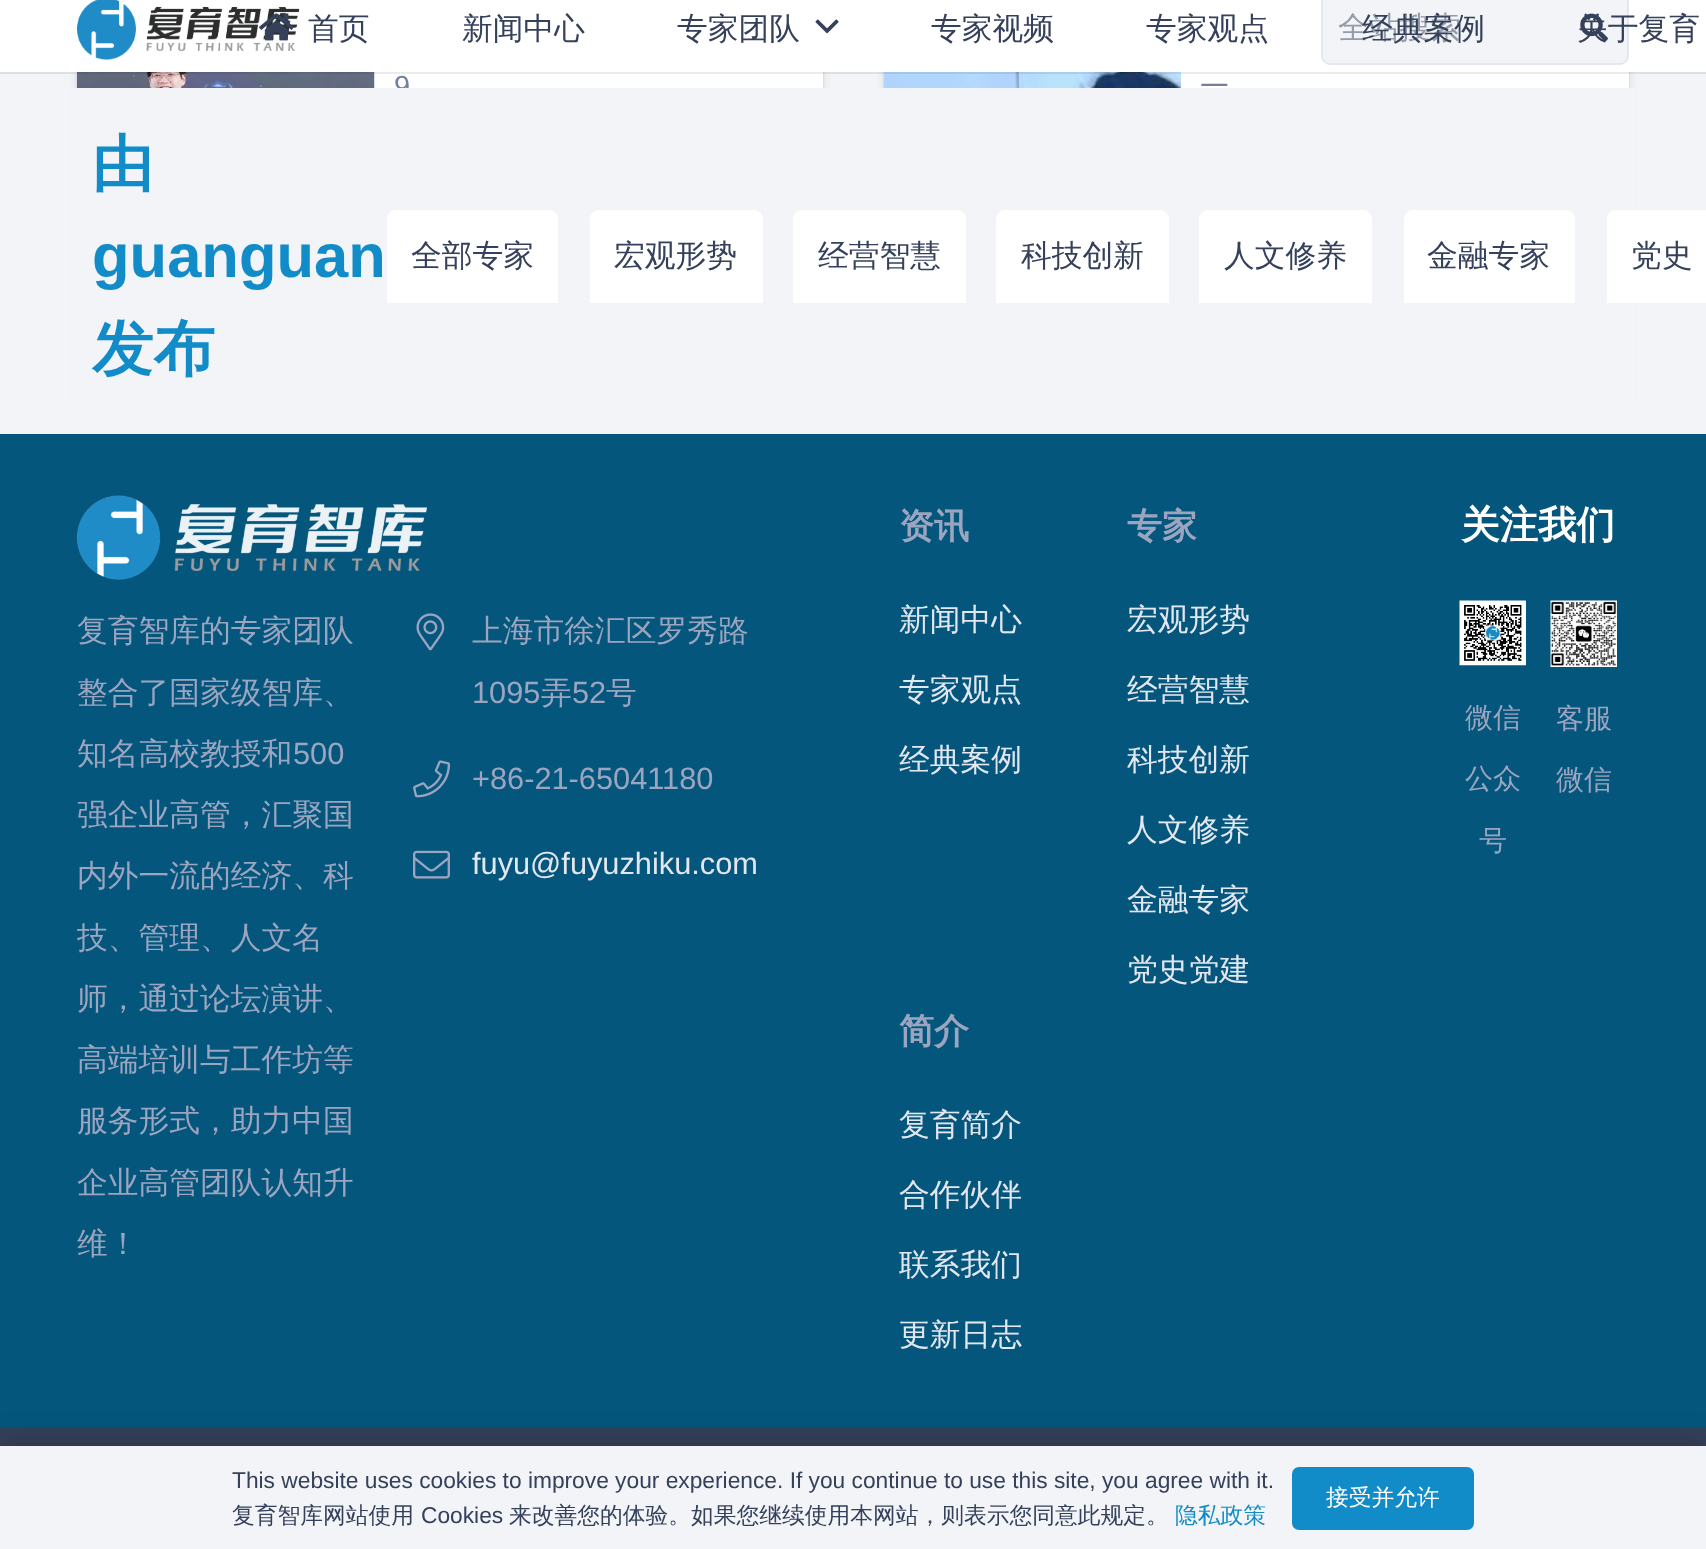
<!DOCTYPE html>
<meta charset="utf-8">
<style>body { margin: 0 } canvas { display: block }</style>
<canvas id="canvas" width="1706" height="1549"></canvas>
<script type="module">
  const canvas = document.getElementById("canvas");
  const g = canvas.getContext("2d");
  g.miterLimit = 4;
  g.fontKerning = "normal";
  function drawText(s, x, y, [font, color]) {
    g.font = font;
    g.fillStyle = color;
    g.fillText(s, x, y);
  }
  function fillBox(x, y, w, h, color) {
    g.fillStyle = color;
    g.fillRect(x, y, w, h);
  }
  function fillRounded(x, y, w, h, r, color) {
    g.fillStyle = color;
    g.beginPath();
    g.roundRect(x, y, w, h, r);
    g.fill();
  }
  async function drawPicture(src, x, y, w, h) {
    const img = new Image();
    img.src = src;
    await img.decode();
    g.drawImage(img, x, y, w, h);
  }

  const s1 = ["500 30.75px WenQuanYi Zen Hei", "#35415B"];
  const s2 = ["500 30.75px WenQuanYi Zen Hei", "#949BA9"];
  const s3 = ["29px Liberation Sans", "#727F9F"];
  const s4 = ["500 29px WenQuanYi Zen Hei", "#727F9F"];
  const s5 = ["bold 61.5px WenQuanYi Zen Hei", "#118CC8"];
  const s6 = ["bold 61.5px Liberation Sans", "#118CC8"];
  const s7 = ["500 30.75px WenQuanYi Zen Hei", "#9BA5BF"];
  const s8 = ["30.75px Liberation Sans", "#9BA5BF"];
  const s9 = ["30.75px Liberation Sans", "#E3E7F0"];
  const s10 = ["bold 35px WenQuanYi Zen Hei", "#9BA5BF"];
  const s11 = ["500 30.75px WenQuanYi Zen Hei", "#E3E7F0"];
  const s12 = ["bold 38.5px WenQuanYi Zen Hei", "#FFFFFF"];
  const s13 = ["500 28px WenQuanYi Zen Hei", "#9BA5BF"];
  const s14 = ["22.75px Liberation Sans", "#35415B"];
  const s15 = ["500 22.75px WenQuanYi Zen Hei", "#35415B"];
  const s16 = ["500 22.75px WenQuanYi Zen Hei", "#118CC8"];
  const s17 = ["500 22.75px WenQuanYi Zen Hei", "#FFFFFF"];

  fillBox(0, 0, 1706, 1549, "#F2F4F7");
  g.fillStyle = "rgba(0, 0, 0, 0.1)";
  g.filter = "blur(4.5px)";
  g.beginPath();
  g.roundRect(77, -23, 746, 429, 9);
  g.fill();
  g.filter = "none";
  g.filter = "blur(1px)";
  g.beginPath();
  g.roundRect(77, -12, 746, 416, 9);
  g.fill();
  g.filter = "none";
  fillBox(374, 72, 449, 16, "#FFFFFF");
  await drawPicture("pic5.png", 77, 72, 298, 16);
  g.fillStyle = "rgba(0, 0, 0, 0.1)";
  g.filter = "blur(4.5px)";
  g.beginPath();
  g.roundRect(884, -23, 745, 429, 9);
  g.fill();
  g.filter = "none";
  g.filter = "blur(1px)";
  g.beginPath();
  g.roundRect(884, -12, 745, 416, 9);
  g.fill();
  g.filter = "none";
  fillBox(1181, 72, 448, 16, "#FFFFFF");
  await drawPicture("pic6.png", 884, 72, 298, 16);
  fillBox(0, 72, 1706, 2, "rgba(0, 0, 0, 0.08)");
  fillBox(0, 0, 1706, 72, "#FFFFFF");
  await drawPicture("pic1.png", 77, 0, 223, 60);
  await drawPicture("pic2.png", 259, 13, 35, 28);
  drawText("首页", 308, 39, s1);
  drawText("新闻中心", 462, 39, s1);
  drawText("专家团队", 677, 39, s1);
  await drawPicture("pic3.png", 815, 19, 24, 15);
  drawText("专家视频", 931, 39, s1);
  drawText("专家观点", 1146, 39, s1);
  g.fillStyle = "#F2F4F7";
  g.beginPath();
  g.roundRect(1322, -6, 306, 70, 8);
  g.fill();
  g.strokeStyle = "#E3E7F0";
  g.lineWidth = 2;
  g.stroke();
  drawText("全站搜索", 1338, 38, s2);
  drawText("经典案例", 1362, 39, s1);
  await drawPicture("pic4.png", 1580, 13, 28, 29);
  drawText("关于复育", 1577, 39, s1);
  drawText("9", 394, 96, s3);
  drawText("一", 1200, 96, s4);
  fillBox(71, 88, 1564, 324, "#F2F4F7");
  drawText("由", 92, 185, s5);
  drawText("guanguan", 92, 277, s6);
  drawText("发布", 92, 370, s5);
  g.fillStyle = "#FFFFFF";
  g.beginPath();
  g.roundRect(387, 210, 171, 93, [9, 9, 0, 0]);
  g.fill();
  drawText("全部专家", 411, 266, s1);
  g.fillStyle = "#FFFFFF";
  g.beginPath();
  g.roundRect(590, 210, 173, 93, [9, 9, 0, 0]);
  g.fill();
  drawText("宏观形势", 614, 266, s1);
  g.fillStyle = "#FFFFFF";
  g.beginPath();
  g.roundRect(793, 210, 173, 93, [9, 9, 0, 0]);
  g.fill();
  drawText("经营智慧", 818, 266, s1);
  g.fillStyle = "#FFFFFF";
  g.beginPath();
  g.roundRect(996, 210, 173, 93, [9, 9, 0, 0]);
  g.fill();
  drawText("科技创新", 1021, 266, s1);
  g.fillStyle = "#FFFFFF";
  g.beginPath();
  g.roundRect(1199, 210, 173, 93, [9, 9, 0, 0]);
  g.fill();
  drawText("人文修养", 1224, 266, s1);
  g.fillStyle = "#FFFFFF";
  g.beginPath();
  g.roundRect(1404, 210, 171, 93, [9, 9, 0, 0]);
  g.fill();
  drawText("金融专家", 1427, 266, s1);
  g.fillStyle = "#FFFFFF";
  g.beginPath();
  g.moveTo(1616, 210);
  g.lineTo(1706, 210);
  g.bezierCurveTo(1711, 210, 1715, 214, 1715, 219);
  g.lineTo(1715, 303);
  g.lineTo(1607, 303);
  g.lineTo(1607, 219);
  g.bezierCurveTo(1607, 214, 1611, 210, 1616, 210);
  g.closePath();
  g.fill();
  drawText("党史", 1631, 266, s1);
  fillBox(0, 434, 1706, 994, "#05567D");
  await drawPicture("pic7.png", 77, 495, 350, 85);
  drawText("复育智库的专家团队", 77, 641, s7);
  drawText("整合了国家级智库、", 77, 703, s7);
  drawText("知名高校教授和", 77, 764, s7);
  drawText("500", 293, 764, s8);
  drawText("强企业高管，汇聚国", 77, 825, s7);
  drawText("内外一流的经济、科", 77, 886, s7);
  drawText("技、管理、人文名", 77, 948, s7);
  drawText("师，通过论坛演讲、", 77, 1009, s7);
  drawText("高端培训与工作坊等", 77, 1070, s7);
  drawText("服务形式，助力中国", 77, 1131, s7);
  drawText("企业高管团队认知升", 77, 1193, s7);
  drawText("维！", 77, 1254, s7);
  await drawPicture("pic8.png", 416, 613, 29, 38);
  drawText("上海市徐汇区罗秀路", 472, 641, s7);
  drawText("1095", 472, 703, s8);
  drawText("弄", 541, 703, s7);
  drawText("52", 572, 703, s8);
  drawText("号", 606, 703, s7);
  await drawPicture("pic9.png", 413, 760, 37, 38);
  drawText("+86-21-65041180", 472, 789, s8);
  await drawPicture("pic10.png", 413, 850, 37, 29);
  drawText("fuyu@fuyuzhiku.com", 472, 874, s9);
  drawText("资讯", 899, 538, s10);
  drawText("新闻中心", 899, 630, s11);
  drawText("专家观点", 899, 700, s11);
  drawText("经典案例", 899, 770, s11);
  drawText("专家", 1127, 538, s10);
  drawText("宏观形势", 1127, 630, s11);
  drawText("经营智慧", 1127, 700, s11);
  drawText("科技创新", 1127, 770, s11);
  drawText("人文修养", 1127, 840, s11);
  drawText("金融专家", 1127, 910, s11);
  drawText("党史党建", 1127, 980, s11);
  drawText("简介", 899, 1043, s10);
  drawText("复育简介", 899, 1135, s11);
  drawText("合作伙伴", 899, 1205, s11);
  drawText("联系我们", 899, 1275, s11);
  drawText("更新日志", 899, 1345, s11);
  drawText("关注我们", 1461, 538, s12);
  await drawPicture("pic11.png", 1459, 600, 67, 66);
  drawText("微信", 1465, 727, s13);
  drawText("公众", 1465, 788, s13);
  drawText("号", 1479, 850, s13);
  await drawPicture("pic12.png", 1550, 600, 67, 67);
  drawText("客服", 1556, 728, s13);
  drawText("微信", 1556, 789, s13);
  fillBox(0, 1428, 1706, 18, "#35415B");
  g.fillStyle = "rgba(0, 0, 0, 0.15)";
  g.filter = "blur(13px)";
  g.beginPath();
  g.rect(0, 1437, 1706, 105);
  g.fill();
  g.filter = "none";
  fillBox(0, 1446, 1706, 103, "#F2F4F7");
  drawText("This website uses cookies to improve your experience. If you continue to use this site, you agree with it.", 232, 1488, s14);
  drawText("复育智库网站使用", 232, 1523, s15);
  drawText("Cookies", 421, 1523, s14);
  drawText("来改善您的体验。如果您继续使用本网站，则表示您同意此规定。", 509, 1523, s15);
  drawText("隐私政策", 1175, 1523, s16);
  fillRounded(1292, 1467, 182, 63, 7, "#118CC8");
  drawText("接受并允许", 1326, 1505, s17);
</script>
